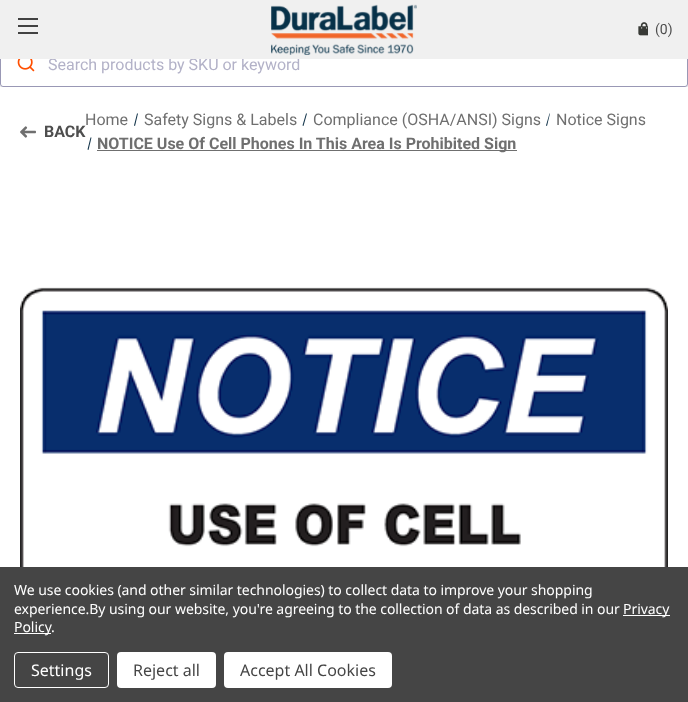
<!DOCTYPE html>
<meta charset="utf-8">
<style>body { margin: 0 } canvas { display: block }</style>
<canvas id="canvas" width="688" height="702"></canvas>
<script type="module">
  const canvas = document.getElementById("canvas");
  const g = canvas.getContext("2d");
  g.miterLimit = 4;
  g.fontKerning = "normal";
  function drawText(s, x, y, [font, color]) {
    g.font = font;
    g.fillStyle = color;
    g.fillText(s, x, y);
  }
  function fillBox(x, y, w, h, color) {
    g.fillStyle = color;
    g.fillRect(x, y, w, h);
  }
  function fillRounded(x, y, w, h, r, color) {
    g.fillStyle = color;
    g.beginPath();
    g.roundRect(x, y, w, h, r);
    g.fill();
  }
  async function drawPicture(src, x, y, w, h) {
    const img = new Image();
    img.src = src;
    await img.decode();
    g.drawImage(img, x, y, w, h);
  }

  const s1 = ["16px Roboto", "#B3B2C8"];
  const s2 = ["14px Roboto", "#4E4E4E"];
  const s3 = ["bold 16px Roboto", "#4E4E4E"];
  const s4 = ["16px Roboto", "#6F6F6F"];
  const s5 = ["bold 16px Roboto", "#6F6F6F"];
  const s6 = ["14px Noto Sans", "#FFFFFF"];
  const s7 = ["16px Noto Sans", "#FFFFFF"];
  const s8 = ["16px Noto Sans", "#454545"];

  fillBox(0, 0, 688, 702, "#FFFFFF");
  fillBox(0, 84, 688, 2, "#F0F0F0");
  fillBox(0, 86, 688, 1, "#EBEBEB");
  fillRounded(0, 41, 688, 46, 3, "#FFFFFF");
  g.beginPath();
  g.roundRect(0.5, 41.5, 687, 45, 2.5);
  g.strokeStyle = "rgba(128, 126, 163, 0.8)";
  g.stroke();
  drawText("Search products by SKU or keyword", 48, 70, s1);
  fillBox(0, 0, 688, 59, "#F0F0F0");
  fillBox(18, 25, 20, 2, "#424242");
  fillBox(18, 18, 20, 2, "#424242");
  fillBox(18, 32, 20, 2, "#424242");
  await drawPicture("pic1.png", 271, 4, 146, 51);
  await drawPicture("pic2.png", 638, 22, 10, 14);
  drawText("(0)", 655, 34, s2);
  await drawPicture("pic3.png", 17, 59, 18, 13);
  await drawPicture("pic4.png", 20, 126, 16, 12);
  drawText("BACK", 44, 137, s3);
  drawText("Home", 85, 125, s4);
  g.fillStyle = "#103248";
  g.beginPath();
  g.moveTo(137, 113.5);
  g.lineTo(138, 113.5);
  g.lineTo(135, 126);
  g.lineTo(134, 125.5);
  g.closePath();
  g.fill();
  drawText("Safety Signs & Labels", 144, 125, s4);
  g.fillStyle = "#103248";
  g.beginPath();
  g.moveTo(306, 113.5);
  g.lineTo(307, 113.5);
  g.lineTo(303.5, 126);
  g.lineTo(302.5, 125.5);
  g.closePath();
  g.fill();
  drawText("Compliance (OSHA/ANSI) Signs", 313, 125, s4);
  g.fillStyle = "#103248";
  g.beginPath();
  g.moveTo(549.5, 113.5);
  g.lineTo(550, 113.5);
  g.lineTo(547, 126);
  g.lineTo(546, 125.5);
  g.closePath();
  g.fill();
  drawText("Notice Signs", 556, 125, s4);
  g.fillStyle = "#103248";
  g.beginPath();
  g.moveTo(90.5, 137.5);
  g.lineTo(91.5, 137.5);
  g.lineTo(88.5, 150);
  g.lineTo(87.5, 149.5);
  g.closePath();
  g.fill();
  fillBox(97, 150, 420, 1, "#6F6F6F");
  drawText("NOTICE Use Of Cell Phones In This Area Is Prohibited Sign", 97, 149, s5);
  await drawPicture("pic5.png", 20, 287, 648, 280);
  fillBox(0, 567, 688, 135, "#454545");
  g.letterSpacing = "-0.05px";
  drawText("We use cookies (and other similar technologies) to collect data to improve your shopping", 14, 595, s6);
  drawText("experience.By using our website, you're agreeing to the collection of data as described in our", 14, 614, s6);
  fillBox(623, 615, 47, 1, "#FFFFFF");
  drawText("Privacy", 623, 614, s6);
  fillBox(14, 633, 37, 1, "#FFFFFF");
  drawText("Policy", 14, 632, s6);
  drawText(".", 51, 632, s6);
  g.beginPath();
  g.roundRect(14.5, 652.5, 94, 35, 3.5);
  g.strokeStyle = "#FFFFFF";
  g.stroke();
  g.letterSpacing = "0px";
  drawText("Settings", 31, 676, s7);
  fillRounded(117, 652, 99, 36, 4, "#FFFFFF");
  drawText("Reject all", 133, 676, s8);
  fillRounded(224, 652, 168, 36, 4, "#FFFFFF");
  drawText("Accept All Cookies", 240, 676, s8);
</script>
